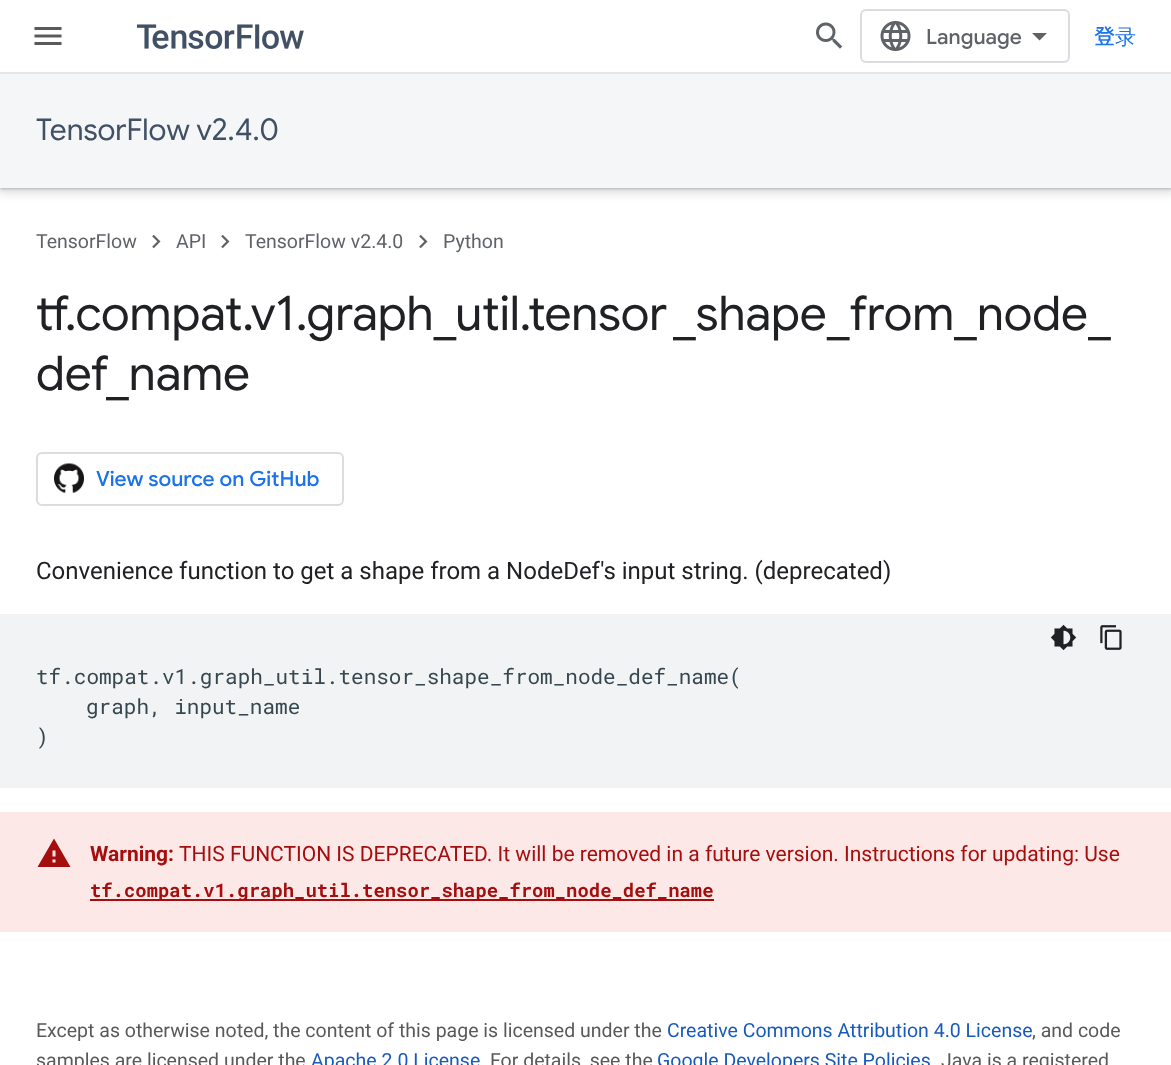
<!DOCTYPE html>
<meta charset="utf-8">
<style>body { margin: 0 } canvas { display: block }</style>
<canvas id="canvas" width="1171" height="1065"></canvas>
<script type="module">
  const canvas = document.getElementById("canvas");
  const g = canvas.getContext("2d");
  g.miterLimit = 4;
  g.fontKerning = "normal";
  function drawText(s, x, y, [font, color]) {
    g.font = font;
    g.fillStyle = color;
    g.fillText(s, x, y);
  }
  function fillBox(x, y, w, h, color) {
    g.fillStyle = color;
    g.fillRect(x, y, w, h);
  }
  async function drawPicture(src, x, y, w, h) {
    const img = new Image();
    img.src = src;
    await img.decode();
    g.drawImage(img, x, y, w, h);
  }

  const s1 = ["500 21px Google Sans", "#5F6368"];
  const s2 = ["500 21px Noto Sans JP", "#1A73E8"];
  const s3 = ["500 21px WenQuanYi Zen Hei", "#1A73E8"];
  const s4 = ["30px Google Sans", "#425066"];
  const s5 = ["19.5px Roboto", "#5F6368"];
  const s6 = ["48px Google Sans", "#202124"];
  const s7 = ["500 21px Google Sans", "#1A73E8"];
  const s8 = ["24px Roboto", "#202124"];
  const s9 = ["21px Roboto Mono", "#37474F"];
  const s10 = ["bold 21px Roboto", "#A50E0E"];
  const s11 = ["21px Roboto", "#A50E0E"];
  const s12 = ["bold 18.9px Roboto Mono", "#A50E0E"];
  const s13 = ["19.5px Roboto", "#595959"];
  const s14 = ["19.5px Roboto", "#185ABC"];

  fillBox(0, 0, 1171, 1065, "#FFFFFF");
  g.fillStyle = "rgba(60, 64, 67, 0.15)";
  g.filter = "blur(4.5px)";
  g.beginPath();
  g.rect(-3, 74, 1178, 120);
  g.fill();
  g.filter = "none";
  g.fillStyle = "rgba(60, 64, 67, 0.3)";
  g.filter = "blur(1.5px)";
  g.beginPath();
  g.rect(0, 75, 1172, 114);
  g.fill();
  g.filter = "none";
  fillBox(0, 68, 1171, 4, "#FFFFFF");
  fillBox(0, 72, 1171, 2, "#E6E6E6");
  await drawPicture("pic1.png", 34, 27, 28, 18);
  await drawPicture("pic2.png", 136, 24, 168, 25);
  await drawPicture("pic3.png", 816, 22, 27, 27);
  g.beginPath();
  g.roundRect(861, 10, 208, 52, 5);
  g.strokeStyle = "#DADCE0";
  g.lineWidth = 2;
  g.stroke();
  await drawPicture("pic4.png", 880, 21, 31, 30);
  drawText("Language", 926, 44, s1);
  g.beginPath();
  g.moveTo(1039.5, 40.5);
  g.lineTo(1032, 33);
  g.lineTo(1047, 33);
  g.closePath();
  g.fill();
  drawText("登", 1094, 44, s2);
  drawText("录", 1115, 44, s3);
  fillBox(0, 74, 1171, 114, "#F5F6F7");
  drawText("TensorFlow v2.4.0", 36, 140, s4);
  drawText("TensorFlow", 36, 248, s5);
  await drawPicture("pic5.png", 152, 234, 9, 15);
  drawText("API", 176, 248, s5);
  await drawPicture("pic5.png", 221, 234, 9, 15);
  drawText("TensorFlow v2.4.0", 245, 248, s5);
  await drawPicture("pic5.png", 419, 234, 9, 15);
  drawText("Python", 443, 248, s5);
  drawText("tf", 36, 330, s6);
  drawText(".compat.v1.graph_util.tensor", 65, 330, s6);
  drawText("_shape_from_node_", 673, 330, s6);
  drawText("def", 36, 390, s6);
  drawText("_name", 106, 390, s6);
  g.beginPath();
  g.roundRect(37, 453, 306, 52, 5);
  g.stroke();
  await drawPicture("pic6.png", 54, 463, 30, 30);
  drawText("View source on GitHub", 96, 486, s7);
  drawText("Convenience function to get a shape from a NodeDef's input string. (deprecated)", 36, 579, s8);
  fillBox(0, 614, 1171, 174, "#F1F3F4");
  await drawPicture("pic7.png", 1050, 624, 27, 27);
  await drawPicture("pic8.png", 1100, 625, 22, 25);
  drawText("tf.compat.v1.graph_util.tensor_shape_from_node_def_name(", 36, 684, s9);
  drawText("graph, input_name", 86, 714, s9);
  drawText(")", 36, 744, s9);
  fillBox(0, 812, 1171, 120, "#FCE8E6");
  g.fillStyle = "#A50E0E";
  g.beginPath();
  g.moveTo(55.5, 856.5);
  g.lineTo(55.5, 850.5);
  g.lineTo(52.5, 850.5);
  g.lineTo(52.5, 856.5);
  g.closePath();
  g.moveTo(55.5, 862.5);
  g.lineTo(55.5, 859.5);
  g.lineTo(52.5, 859.5);
  g.lineTo(52.5, 862.5);
  g.closePath();
  g.moveTo(37.5, 867);
  g.lineTo(54, 838.5);
  g.lineTo(70.5, 867);
  g.closePath();
  g.fill();
  drawText("Warning:", 90, 861, s10);
  drawText("THIS FUNCTION IS DEPRECATED. It will be removed in a future version. Instructions for updating: Use", 179, 861, s11);
  fillBox(90, 899, 624, 2, "#A50E0E");
  drawText("tf.compat.v1.graph_util.tensor_shape_from_node_def_name", 90, 897, s12);
  drawText("Except as otherwise noted, the content of this page is licensed under the", 36, 1037, s13);
  drawText("Creative Commons Attribution 4.0 License", 667, 1037, s14);
  drawText(", and code", 1032, 1037, s13);
  drawText("samples are licensed under the", 36, 1067, s13);
  drawText("Apache 2.0 License", 311, 1067, s14);
  drawText("For details, see the", 490, 1067, s13);
  drawText("Google Developers Site Policies", 657, 1067, s14);
  drawText("Java is a registered", 941, 1067, s13);
</script>
